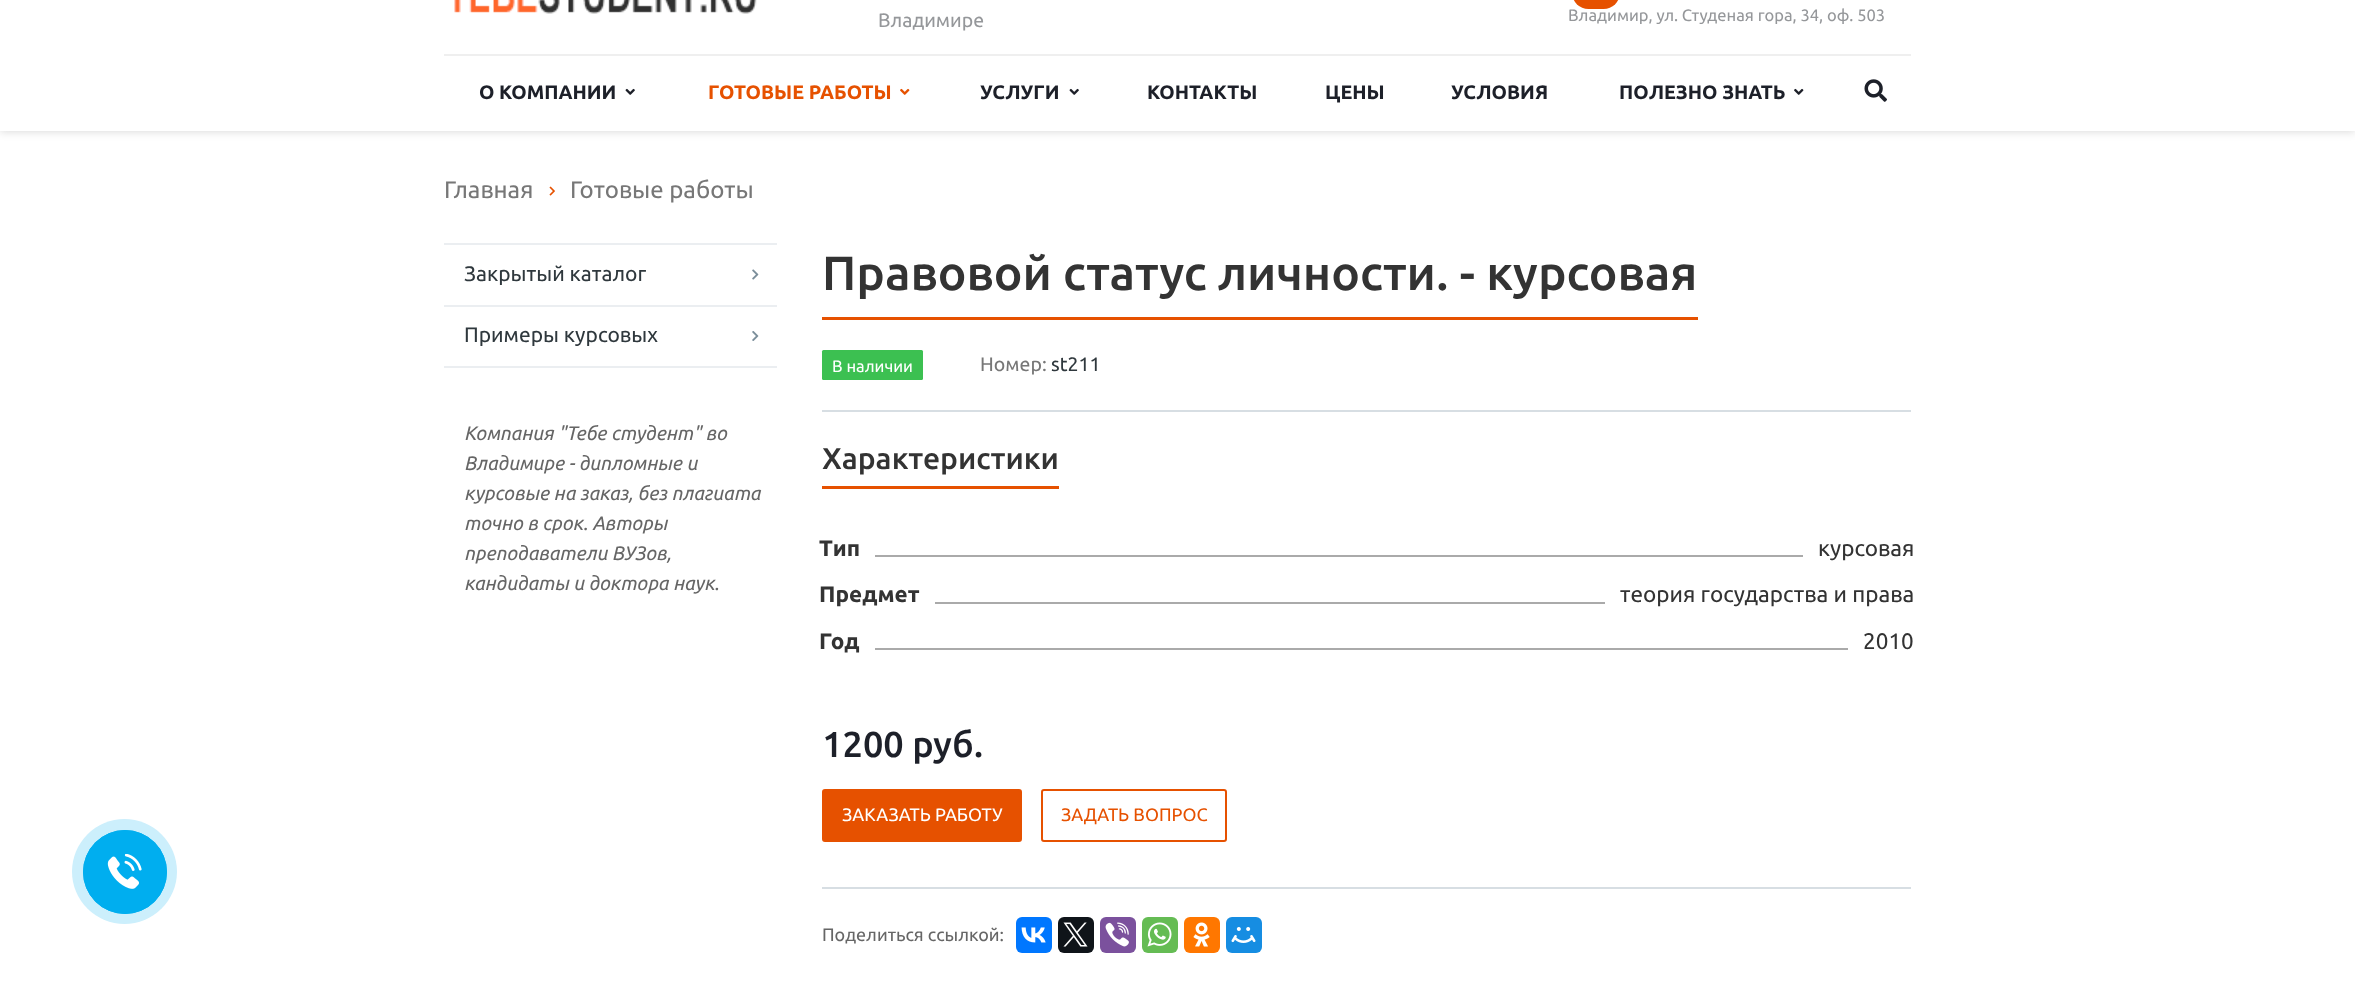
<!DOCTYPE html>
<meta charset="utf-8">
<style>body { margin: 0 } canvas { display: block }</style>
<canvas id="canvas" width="2355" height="996"></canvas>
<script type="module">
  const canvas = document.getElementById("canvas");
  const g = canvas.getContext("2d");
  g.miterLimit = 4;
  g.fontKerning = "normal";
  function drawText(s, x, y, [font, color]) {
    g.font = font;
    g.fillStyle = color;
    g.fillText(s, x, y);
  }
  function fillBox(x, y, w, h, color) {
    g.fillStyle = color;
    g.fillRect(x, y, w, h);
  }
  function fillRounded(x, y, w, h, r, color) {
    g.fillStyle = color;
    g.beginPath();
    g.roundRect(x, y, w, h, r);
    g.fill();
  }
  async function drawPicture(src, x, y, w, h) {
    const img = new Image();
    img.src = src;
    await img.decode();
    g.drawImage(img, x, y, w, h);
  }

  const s1 = ["19.5px Ubuntu", "#95979A"];
  const s2 = ["16.5px Ubuntu", "#95979A"];
  const s3 = ["bold 19.5px Ubuntu", "#1D2029"];
  const s4 = ["bold 19.5px Ubuntu", "#E65100"];
  const s5 = ["24px Ubuntu", "#777777"];
  const s6 = ["21px Ubuntu", "#2F383D"];
  const s7 = ["italic 19.5px Ubuntu", "#666666"];
  const s8 = ["500 48px Ubuntu", "#333333"];
  const s9 = ["16.5px Ubuntu", "#FFFFFF"];
  const s10 = ["19.5px Ubuntu", "#777777"];
  const s11 = ["19.5px Ubuntu", "#2F383D"];
  const s12 = ["500 30px Ubuntu", "#333333"];
  const s13 = ["bold 22.5px Ubuntu", "#333333"];
  const s14 = ["22.5px Ubuntu", "#333333"];
  const s15 = ["500 36px Ubuntu", "#1D2029"];
  const s16 = ["18px Ubuntu", "#FFFFFF"];
  const s17 = ["18px Ubuntu", "#E65100"];
  const s18 = ["18px Ubuntu", "#666666"];

  fillBox(0, 0, 2355, 996, "#FFFFFF");
  g.fillStyle = "#CCEFFC";
  g.beginPath();
  g.arc(124.5, 871.5, 52.5, 0, Math.PI * 2);
  g.fill();
  g.beginPath();
  g.arc(125, 872, 41.5, 0, Math.PI * 2);
  g.strokeStyle = "#00AEEF";
  g.stroke();
  g.fillStyle = "#00AEEF";
  g.beginPath();
  g.arc(125, 872, 42, 0, Math.PI * 2);
  g.fill();
  await drawPicture("pic1.png", 107, 854, 35, 35);
  g.save();
  g.beginPath();
  g.moveTo(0, 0);
  g.lineTo(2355, 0);
  g.lineTo(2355, 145);
  g.lineTo(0, 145);
  g.closePath();
  g.moveTo(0, -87);
  g.lineTo(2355, -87);
  g.lineTo(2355, 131);
  g.lineTo(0, 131);
  g.closePath();
  g.clip("evenodd");
  g.fillStyle = "rgba(0, 0, 0, 0.14)";
  g.filter = "blur(4px)";
  g.beginPath();
  g.rect(0, -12, 2355, 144);
  g.fill();
  g.filter = "none";
  g.restore();
  await drawPicture("pic2.png", 444, 0, 318, 21);
  drawText("Владимире", 878, 27, s1);
  drawText("Владимир, ул. Студеная гора, 34, оф. 503", 1568, 21, s2);
  fillRounded(1572, -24, 48, 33, 24, "#E65100");
  fillBox(444, 54, 1467, 2, "#EFEFEF");
  drawText("О КОМПАНИИ", 479, 99, s3);
  await drawPicture("pic3.png", 625, 88, 10, 7);
  drawText("ГОТОВЫЕ РАБОТЫ", 708, 99, s4);
  await drawPicture("pic4.png", 900, 88, 10, 7);
  drawText("УСЛУГИ", 980, 99, s3);
  await drawPicture("pic3.png", 1069, 88, 10, 7);
  drawText("КОНТАКТЫ", 1147, 99, s3);
  drawText("ЦЕНЫ", 1325, 99, s3);
  drawText("УСЛОВИЯ", 1451, 99, s3);
  drawText("ПОЛЕЗНО ЗНАТЬ", 1619, 99, s3);
  await drawPicture("pic5.png", 1794, 88, 10, 7);
  await drawPicture("pic6.png", 1864, 79, 23, 23);
  drawText("Главная", 444, 198, s5);
  await drawPicture("pic7.png", 549, 186, 6, 10);
  drawText("Готовые работы", 570, 198, s5);
  fillBox(444, 366, 333, 2, "#EBEEF1");
  fillBox(444, 243, 333, 2, "#EBEEF1");
  drawText("Закрытый каталог", 464, 281, s6);
  await drawPicture("pic8.png", 752, 269, 7, 11);
  fillBox(444, 305, 333, 2, "#EBEEF1");
  drawText("Примеры курсовых", 464, 342, s6);
  await drawPicture("pic9.png", 752, 331, 7, 10);
  drawText("Компания \"Тебе студент\" во", 464, 440, s7);
  drawText("Владимире - дипломные и", 464, 470, s7);
  drawText("курсовые на заказ, без плагиата", 464, 500, s7);
  drawText("точно в срок. Авторы", 464, 530, s7);
  drawText("преподаватели ВУЗов,", 464, 560, s7);
  drawText("кандидаты и доктора наук.", 464, 590, s7);
  fillBox(822, 317, 876, 3, "#E65100");
  drawText("Правовой статус личности. - курсовая", 822, 290, s8);
  fillRounded(822, 350, 101, 30, 1.5, "#3CC051");
  drawText("В наличии", 832, 372, s9);
  drawText("Номер:", 980, 371, s10);
  drawText("st211", 1051, 371, s11);
  fillBox(822, 410, 1089, 2, "#D7DEE3");
  fillBox(822, 486, 237, 3, "#E65100");
  drawText("Характеристики", 822, 469, s12);
  drawText("Тип", 819, 556, s13);
  fillBox(875, 555, 928, 2, "#AAAAAA");
  drawText("курсовая", 1818, 556, s14);
  drawText("Предмет", 819, 602, s13);
  fillBox(935, 602, 670, 2, "#AAAAAA");
  drawText("теория государства и права", 1620, 602, s14);
  drawText("Год", 819, 649, s13);
  fillBox(875, 648, 973, 2, "#AAAAAA");
  drawText("2010", 1863, 649, s14);
  drawText("1200 руб.", 822, 757, s15);
  g.fillStyle = "#E65100";
  g.beginPath();
  g.roundRect(823, 790, 198, 51, 2);
  g.fill();
  g.strokeStyle = "#E65100";
  g.lineWidth = 2;
  g.stroke();
  drawText("ЗАКАЗАТЬ РАБОТУ", 842, 821, s16);
  g.beginPath();
  g.roundRect(1042, 790, 184, 51, 2);
  g.stroke();
  drawText("ЗАДАТЬ ВОПРОС", 1061, 821, s17);
  fillBox(822, 887, 1089, 2, "#D7DEE3");
  drawText("Поделиться ссылкой:", 822, 941, s18);
  fillRounded(1016, 917, 36, 36, 6, "#0077FF");
  await drawPicture("pic10.png", 1021, 927, 25, 16);
  fillRounded(1058, 917, 36, 36, 6, "#0F1419");
  await drawPicture("pic11.png", 1063, 922, 25, 25);
  fillRounded(1100, 917, 36, 36, 6, "#7B519D");
  await drawPicture("pic12.png", 1105, 922, 24, 25);
  fillRounded(1142, 917, 36, 36, 6, "#65BC54");
  await drawPicture("pic13.png", 1147, 922, 25, 25);
  fillRounded(1184, 917, 36, 36, 6, "#FF7700");
  await drawPicture("pic14.png", 1193, 922, 17, 25);
  fillRounded(1226, 917, 36, 36, 6, "#168DE2");
  await drawPicture("pic15.png", 1231, 927, 25, 16);
</script>
